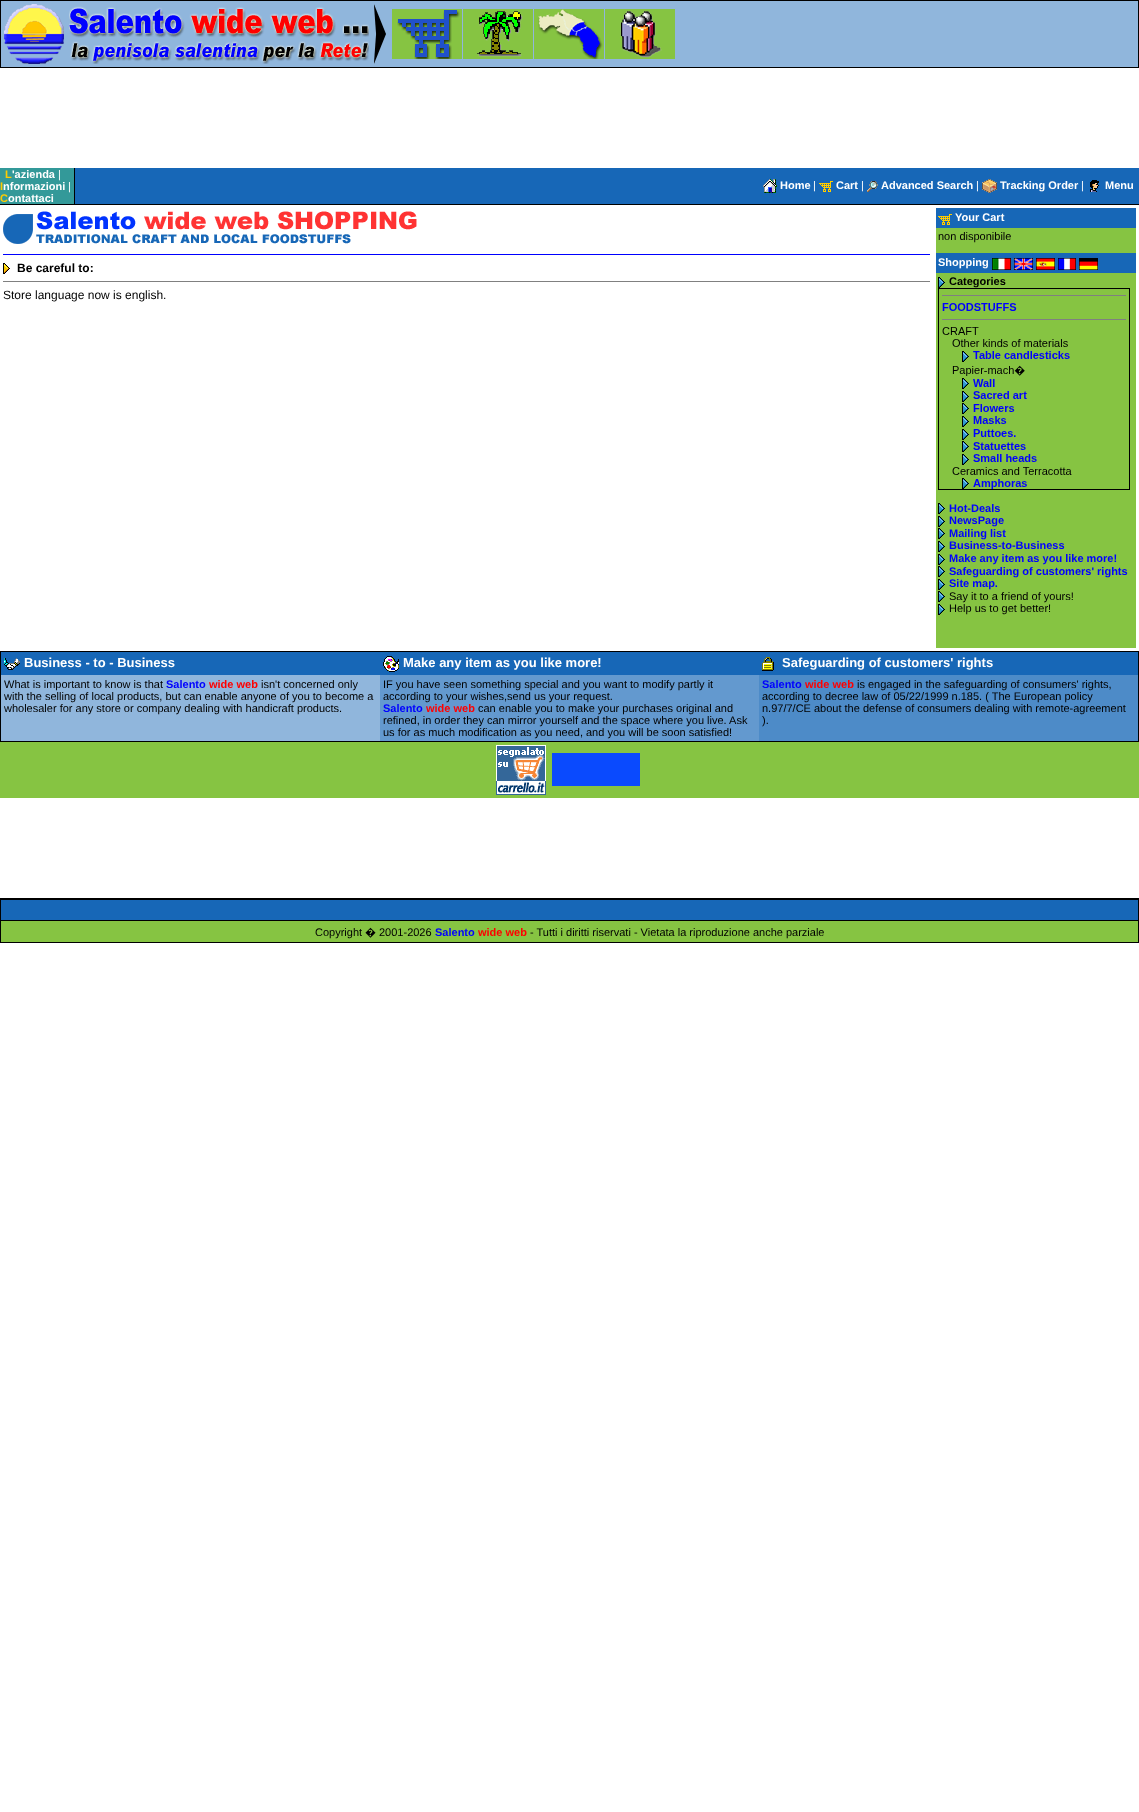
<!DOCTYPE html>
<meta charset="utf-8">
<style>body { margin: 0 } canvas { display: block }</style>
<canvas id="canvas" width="1139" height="1812"></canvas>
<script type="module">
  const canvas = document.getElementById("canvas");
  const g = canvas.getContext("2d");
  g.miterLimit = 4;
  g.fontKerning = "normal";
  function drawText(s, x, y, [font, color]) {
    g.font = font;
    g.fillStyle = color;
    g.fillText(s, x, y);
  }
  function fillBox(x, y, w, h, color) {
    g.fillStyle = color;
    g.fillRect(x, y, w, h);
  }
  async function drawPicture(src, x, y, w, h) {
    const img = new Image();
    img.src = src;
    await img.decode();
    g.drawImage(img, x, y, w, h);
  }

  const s1 = ["bold 11px Liberation Sans", "#FFCC00"];
  const s2 = ["bold 11px Liberation Sans", "#FFFFFF"];
  const s3 = ["11px Liberation Sans", "#FFFFFF"];
  const s4 = ["bold 12px Liberation Sans", "#000000"];
  const s5 = ["12px Liberation Sans", "#000000"];
  const s6 = ["11px Liberation Sans", "#000000"];
  const s7 = ["bold 11px Liberation Sans", "#000000"];
  const s8 = ["bold 11px Liberation Sans", "#0000FF"];
  const s9 = ["bold 13px Liberation Sans", "#FFFFFF"];
  const s10 = ["bold 11px Liberation Sans", "#FF0000"];
  const s11 = ["11px Noto Sans", "#000000"];

  fillBox(0, 0, 1139, 1812, "#FFFFFF");
  fillBox(0, 0, 1139, 68, "#000000");
  fillBox(1, 1, 1137, 66, "#90B6DC");
  await drawPicture("pic1.png", 4, 4, 60, 60);
  await drawPicture("pic2.png", 69, 6, 300, 58);
  await drawPicture("pic3.png", 374, 4, 12, 60);
  await drawPicture("pic4.png", 392, 9, 70, 50);
  await drawPicture("pic5.png", 463, 9, 70, 50);
  await drawPicture("pic6.png", 534, 9, 70, 50);
  await drawPicture("pic7.png", 605, 9, 70, 50);
  fillBox(0, 168, 1139, 37, "#000000");
  fillBox(0, 168, 74, 36, "#339999");
  drawText("L", 5, 178, s1);
  drawText("'azienda", 12, 178, s2);
  drawText("|", 58, 178, s3);
  drawText("I", 0, 190, s1);
  drawText("nformazioni", 3, 190, s2);
  drawText("|", 68, 190, s3);
  drawText("C", 0, 202, s1);
  drawText("ontattaci", 8, 202, s2);
  fillBox(75, 168, 1064, 36, "#1767B7");
  await drawPicture("pic8.png", 763, 179, 14, 14);
  drawText("Home", 780, 189, s2);
  drawText("|", 813, 189, s3);
  await drawPicture("pic9.png", 819, 181, 14, 11);
  drawText("Cart", 836, 189, s2);
  drawText("|", 861, 189, s3);
  await drawPicture("pic10.png", 867, 181, 11, 11);
  drawText("Advanced Search", 881, 189, s2);
  drawText("|", 976, 189, s3);
  await drawPicture("pic11.png", 982, 179, 15, 14);
  drawText("Tracking Order", 1000, 189, s2);
  drawText("|", 1081, 189, s3);
  await drawPicture("pic12.png", 1090, 180, 9, 12);
  drawText("Menu", 1105, 189, s2);
  await drawPicture("pic13.png", 3, 214, 30, 30);
  await drawPicture("pic14.png", 36, 211, 381, 33);
  fillBox(3, 254, 927, 1, "#0000FF");
  await drawPicture("pic15.png", 3, 263, 7, 11);
  drawText("Be careful to:", 17, 272, s4);
  fillBox(3, 281, 927, 1, "#808080");
  drawText("Store language now is english.", 3, 299, s5);
  fillBox(936, 228, 200, 420, "#86C442");
  fillBox(936, 208, 200, 20, "#1767B7");
  await drawPicture("pic9.png", 938, 214, 14, 11);
  drawText("Your Cart", 955, 221, s2);
  drawText("non disponibile", 938, 240, s6);
  fillBox(936, 253, 200, 20, "#1767B7");
  drawText("Shopping", 938, 266, s2);
  await drawPicture("pic16.png", 992, 258, 19, 12);
  await drawPicture("pic17.png", 1014, 258, 19, 12);
  await drawPicture("pic18.png", 1036, 258, 19, 12);
  await drawPicture("pic19.png", 1058, 258, 18, 12);
  await drawPicture("pic20.png", 1079, 258, 19, 12);
  await drawPicture("pic21.png", 938, 277, 7, 11);
  drawText("Categories", 949, 285, s7);
  fillBox(938, 288, 192, 202, "#000000");
  await drawPicture("pic22.png", 939, 289, 190, 200);
  await drawPicture("pic21.png", 938, 503, 7, 11);
  drawText("Hot-Deals", 949, 512, s8);
  await drawPicture("pic21.png", 938, 516, 7, 11);
  drawText("NewsPage", 949, 524, s8);
  await drawPicture("pic21.png", 938, 528, 7, 11);
  drawText("Mailing list", 949, 537, s8);
  await drawPicture("pic21.png", 938, 541, 7, 11);
  drawText("Business-to-Business", 949, 549, s8);
  await drawPicture("pic21.png", 938, 554, 7, 11);
  drawText("Make any item as you like more!", 949, 562, s8);
  await drawPicture("pic21.png", 938, 566, 7, 11);
  drawText("Safeguarding of customers' rights", 949, 575, s8);
  await drawPicture("pic21.png", 938, 579, 7, 11);
  drawText("Site map.", 949, 587, s8);
  await drawPicture("pic21.png", 938, 591, 7, 11);
  drawText("Say it to a friend of yours!", 949, 600, s6);
  await drawPicture("pic21.png", 938, 604, 7, 11);
  drawText("Help us to get better!", 949, 612, s6);
  fillBox(0, 651, 1139, 91, "#000000");
  fillBox(1, 652, 1137, 23, "#1767B7");
  await drawPicture("pic23.png", 4, 658, 16, 12);
  drawText("Business - to - Business", 24, 667, s9);
  await drawPicture("pic24.png", 383, 656, 16, 16);
  drawText("Make any item as you like more!", 403, 667, s9);
  await drawPicture("pic25.png", 762, 657, 12, 14);
  drawText("Safeguarding of customers' rights", 782, 667, s9);
  fillBox(1, 675, 379, 66, "#90B6DC");
  drawText("What is important to know is that", 4, 688, s6);
  drawText("Salento", 166, 688, s8);
  drawText("wide web", 209, 688, s10);
  drawText("isn't concerned only", 261, 688, s6);
  drawText("with the selling of local products, but can enable anyone of you to become a", 4, 700, s6);
  drawText("wholesaler for any store or company dealing with handicraft products.", 4, 712, s6);
  fillBox(380, 675, 379, 66, "#6399CF");
  drawText("IF you have seen something special and you want to modify partly it", 383, 688, s6);
  drawText("according to your wishes,send us your request.", 383, 700, s6);
  drawText("Salento", 383, 712, s8);
  drawText("wide web", 426, 712, s10);
  drawText("can enable you to make your purchases original and", 478, 712, s6);
  drawText("refined, in order they can mirror yourself and the space where you live. Ask", 383, 724, s6);
  drawText("us for as much modification as you need, and you will be soon satisfied!", 383, 736, s6);
  fillBox(759, 675, 379, 66, "#4D8BC8");
  drawText("Salento", 762, 688, s8);
  drawText("wide web", 805, 688, s10);
  drawText("is engaged in the safeguarding of consumers' rights,", 857, 688, s6);
  drawText("according to decree law of 05/22/1999 n.185. ( The European policy", 762, 700, s6);
  drawText("n.97/7/CE about the defense of consumers dealing with remote-agreement", 762, 712, s6);
  drawText(").", 762, 724, s6);
  fillBox(0, 742, 1139, 56, "#86C442");
  await drawPicture("pic26.png", 496, 745, 50, 50);
  fillBox(552, 753, 88, 33, "#0A4AFE");
  fillBox(0, 898, 1139, 45, "#000000");
  fillBox(1, 900, 1137, 20, "#1767B7");
  fillBox(1, 921, 1137, 21, "#86C442");
  drawText("Copyright", 315, 936, s6);
  drawText("�", 365, 936, s11);
  drawText("2001-2026", 379, 936, s6);
  drawText("Salento", 435, 936, s8);
  drawText("wide web", 478, 936, s10);
  drawText("- Tutti i diritti riservati - Vietata la riproduzione anche parziale", 530, 936, s6);
</script>
